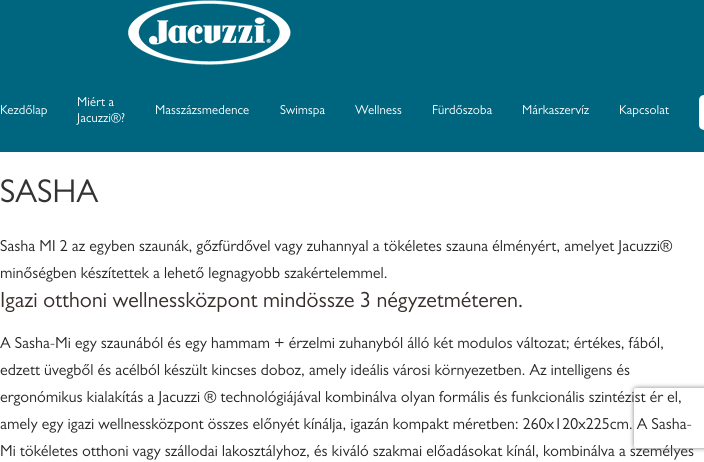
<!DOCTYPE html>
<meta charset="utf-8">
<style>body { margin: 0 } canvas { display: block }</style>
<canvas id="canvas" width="704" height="462"></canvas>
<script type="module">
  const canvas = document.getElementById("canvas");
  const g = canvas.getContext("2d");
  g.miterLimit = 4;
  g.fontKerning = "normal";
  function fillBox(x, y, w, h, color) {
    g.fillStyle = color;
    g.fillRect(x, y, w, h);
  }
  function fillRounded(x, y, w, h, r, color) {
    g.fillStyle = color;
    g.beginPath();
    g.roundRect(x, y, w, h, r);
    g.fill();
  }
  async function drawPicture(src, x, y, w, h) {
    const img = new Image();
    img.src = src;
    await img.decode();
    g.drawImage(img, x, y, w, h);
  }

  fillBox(0, 0, 704, 462, "#FFFFFF");
  fillBox(0, 0, 704, 152, "#00667F");
  await drawPicture("pic1.png", 128, 0, 163, 65);
  await drawPicture("pic2.png", 1, 105, 46, 12);
  await drawPicture("pic3.png", 78, 97, 36, 10);
  await drawPicture("pic4.png", 76, 113, 49, 12);
  await drawPicture("pic5.png", 156, 105, 93, 10);
  await drawPicture("pic6.png", 280, 105, 45, 12);
  await drawPicture("pic7.png", 355, 105, 47, 10);
  await drawPicture("pic8.png", 433, 105, 60, 10);
  await drawPicture("pic9.png", 523, 105, 66, 10);
  await drawPicture("pic10.png", 620, 105, 49, 12);
  fillRounded(699, 95, 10, 35, 5, "#FFFFFF");
  await drawPicture("pic11.png", 1, 179, 98, 24);
  await drawPicture("pic12.png", 0, 239, 673, 16);
  await drawPicture("pic13.png", 1, 267, 386, 15);
  await drawPicture("pic14.png", 1, 291, 521, 22);
  await drawPicture("pic15.png", 0, 336, 663, 16);
  await drawPicture("pic16.png", 0, 364, 630, 15);
  await drawPicture("pic17.png", 0, 390, 681, 16);
  await drawPicture("pic18.png", 0, 417, 692, 16);
  await drawPicture("pic19.png", 1, 445, 693, 15);
  g.save();
  g.beginPath();
  g.moveTo(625, 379);
  g.lineTo(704, 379);
  g.lineTo(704, 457);
  g.lineTo(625, 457);
  g.closePath();
  g.moveTo(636, 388);
  g.lineTo(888, 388);
  g.bezierCurveTo(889, 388, 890, 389, 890, 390);
  g.lineTo(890, 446);
  g.bezierCurveTo(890, 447, 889, 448, 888, 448);
  g.lineTo(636, 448);
  g.bezierCurveTo(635, 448, 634, 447, 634, 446);
  g.lineTo(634, 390);
  g.bezierCurveTo(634, 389, 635, 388, 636, 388);
  g.closePath();
  g.clip("evenodd");
  g.fillStyle = "#808080";
  g.filter = "blur(2.5px)";
  g.beginPath();
  g.roundRect(634, 388, 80, 60, 2);
  g.fill();
  g.filter = "none";
  g.restore();
</script>
